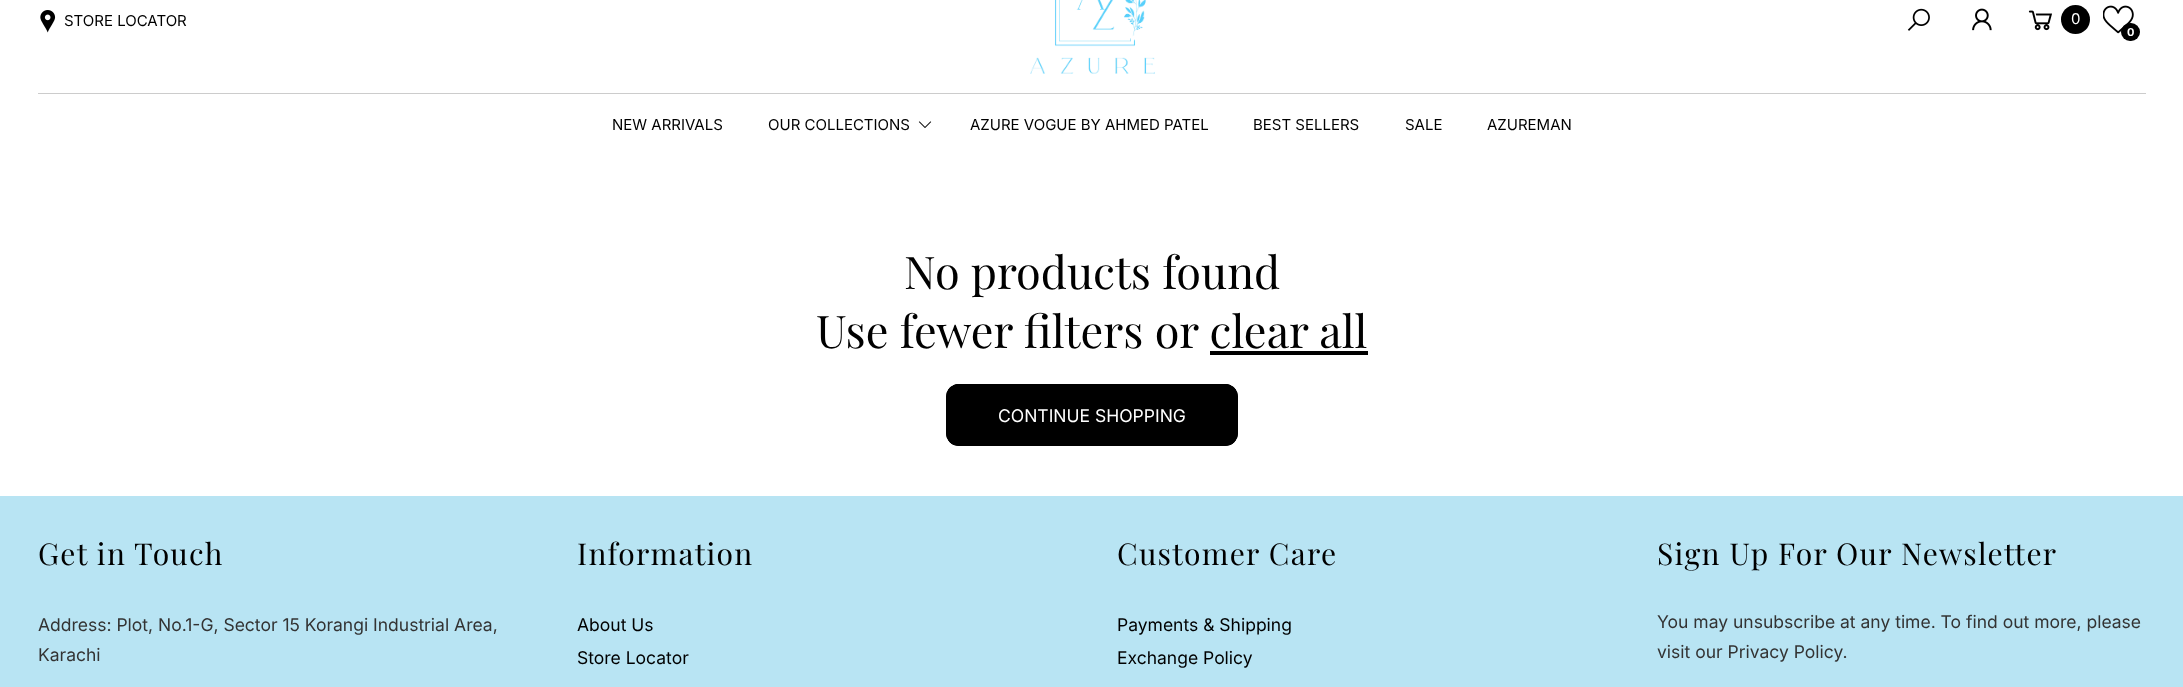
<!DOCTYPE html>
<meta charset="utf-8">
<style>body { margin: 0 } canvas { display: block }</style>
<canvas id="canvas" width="2183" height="687"></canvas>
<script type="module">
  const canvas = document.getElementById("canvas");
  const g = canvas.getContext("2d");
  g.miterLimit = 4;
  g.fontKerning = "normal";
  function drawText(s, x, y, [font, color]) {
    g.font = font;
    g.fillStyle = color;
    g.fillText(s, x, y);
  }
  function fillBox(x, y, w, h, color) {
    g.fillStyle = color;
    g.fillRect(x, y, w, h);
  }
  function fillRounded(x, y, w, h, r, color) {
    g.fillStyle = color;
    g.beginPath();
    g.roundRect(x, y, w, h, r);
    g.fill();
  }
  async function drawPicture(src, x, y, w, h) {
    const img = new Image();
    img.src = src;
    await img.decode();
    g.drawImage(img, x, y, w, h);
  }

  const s1 = ["15px Inter", "#000000"];
  const s2 = ["15px Inter", "#FFFFFF"];
  const s3 = ["bold 11px Inter", "#FFFFFF"];
  const s4 = ["45px Playfair Display", "#000000"];
  const s5 = ["17.5px Inter", "#FFFFFF"];
  const s6 = ["30px Playfair Display", "#000000"];
  const s7 = ["17.5px Inter", "#333333"];
  const s8 = ["17.5px Inter", "#000000"];

  fillBox(0, 0, 2183, 687, "#FFFFFF");
  fillBox(38, 93, 2108, 1, "#CCCCCC");
  await drawPicture("pic1.png", 40, 10, 16, 23);
  drawText("STORE LOCATOR", 64, 26, s1);
  await drawPicture("pic2.png", 1030, 0, 125, 74);
  await drawPicture("pic3.png", 1907, 8, 23, 23);
  await drawPicture("pic4.png", 1972, 8, 20, 23);
  await drawPicture("pic5.png", 2028, 10, 24, 21);
  g.beginPath();
  g.arc(2075.5, 19.5, 14.5, 0, Math.PI * 2);
  g.fill();
  drawText("0", 2071, 24, s2);
  await drawPicture("pic6.png", 2103, 5, 31, 29);
  fillRounded(2121, 23, 19, 18, 9, "#000000");
  drawText("0", 2127, 36, s3);
  drawText("NEW ARRIVALS", 612, 130, s1);
  drawText("OUR COLLECTIONS", 768, 130, s1);
  await drawPicture("pic7.png", 918, 121, 14, 7);
  drawText("AZURE VOGUE BY AHMED PATEL", 970, 130, s1);
  drawText("BEST SELLERS", 1253, 130, s1);
  drawText("SALE", 1405, 130, s1);
  drawText("AZUREMAN", 1487, 130, s1);
  drawText("No products found", 904, 289, s4);
  drawText("Use fewer filters or clear all", 816, 348, s4);
  fillBox(1210, 351, 158, 4, "#000000");
  fillRounded(946, 384, 292, 62, 13, "#000000");
  g.save();
  g.beginPath();
  g.roundRect(946, 384, 292, 62, 13);
  g.clip();
  fillBox(948, 384, 288, 61, "#000000");
  g.restore();
  g.beginPath();
  g.roundRect(946.5, 384.5, 291, 61, 12.5);
  g.strokeStyle = "#000000";
  g.stroke();
  drawText("CONTINUE SHOPPING", 998, 422, s5);
  fillBox(0, 496, 2183, 191, "#B8E4F3");
  g.letterSpacing = "1.25px";
  drawText("Get in Touch", 38, 565, s6);
  g.letterSpacing = "0px";
  drawText("Address: Plot, No.1-G, Sector 15 Korangi Industrial Area,", 38, 631, s7);
  drawText("Karachi", 38, 661, s7);
  g.letterSpacing = "1.25px";
  drawText("Information", 577, 565, s6);
  g.letterSpacing = "0px";
  drawText("About Us", 577, 631, s8);
  drawText("Store Locator", 577, 664, s8);
  g.letterSpacing = "1.25px";
  drawText("Customer Care", 1117, 565, s6);
  g.letterSpacing = "0px";
  drawText("Payments & Shipping", 1117, 631, s8);
  drawText("Exchange Policy", 1117, 664, s8);
  g.letterSpacing = "1.25px";
  drawText("Sign Up For Our Newsletter", 1657, 565, s6);
  g.letterSpacing = "0px";
  drawText("You may unsubscribe at any time. To find out more, please", 1657, 628, s7);
  drawText("visit our Privacy Policy.", 1657, 658, s7);
</script>
